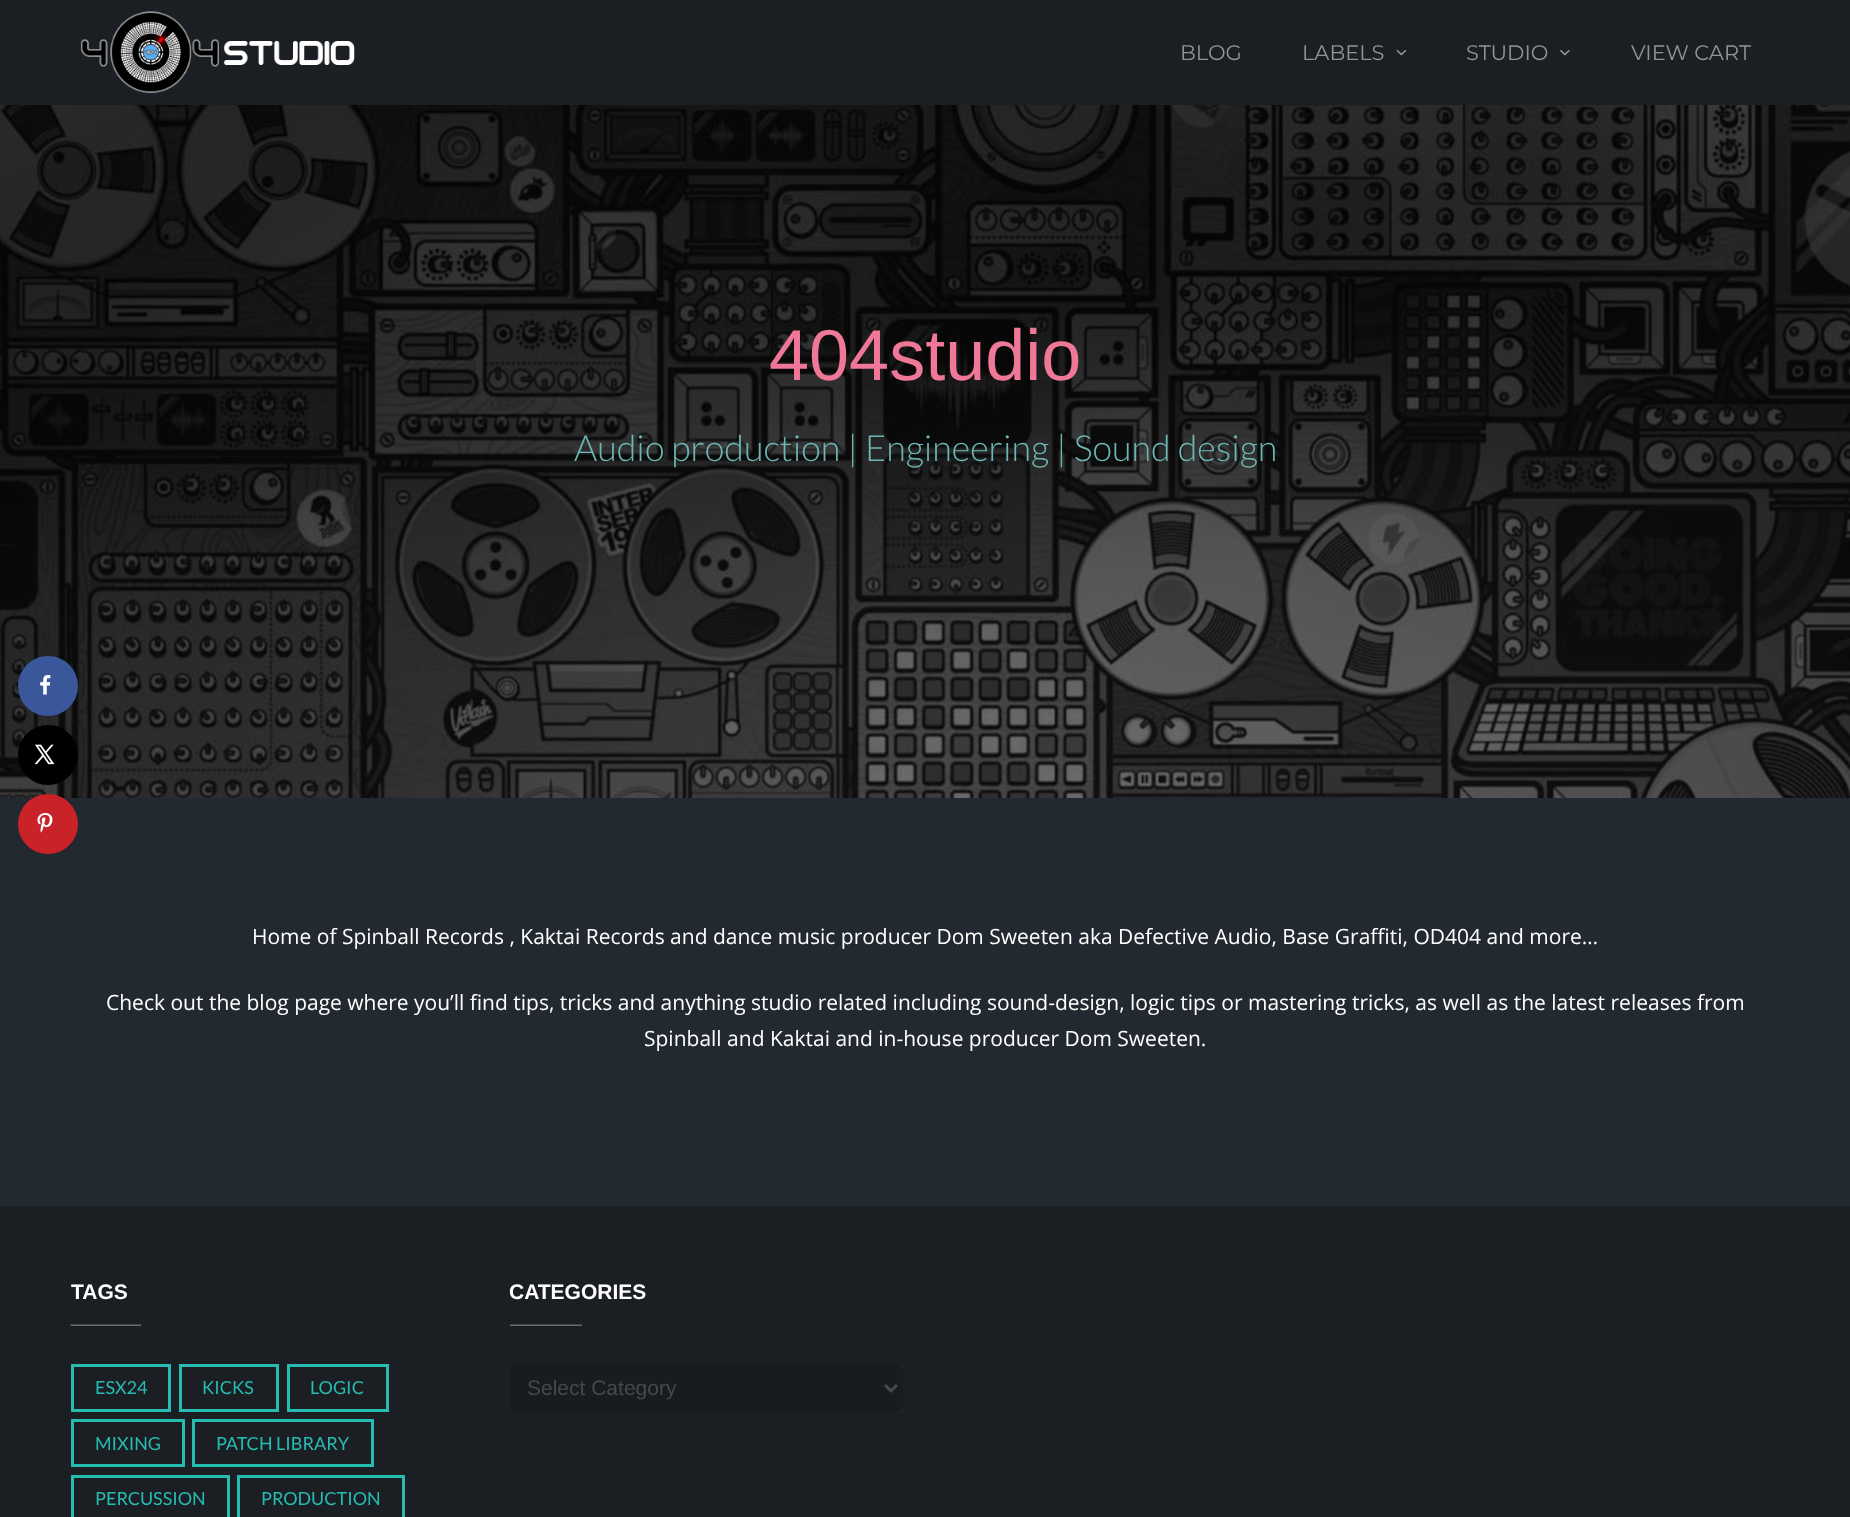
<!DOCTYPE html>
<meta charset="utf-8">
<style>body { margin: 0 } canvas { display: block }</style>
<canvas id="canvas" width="1850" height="1517"></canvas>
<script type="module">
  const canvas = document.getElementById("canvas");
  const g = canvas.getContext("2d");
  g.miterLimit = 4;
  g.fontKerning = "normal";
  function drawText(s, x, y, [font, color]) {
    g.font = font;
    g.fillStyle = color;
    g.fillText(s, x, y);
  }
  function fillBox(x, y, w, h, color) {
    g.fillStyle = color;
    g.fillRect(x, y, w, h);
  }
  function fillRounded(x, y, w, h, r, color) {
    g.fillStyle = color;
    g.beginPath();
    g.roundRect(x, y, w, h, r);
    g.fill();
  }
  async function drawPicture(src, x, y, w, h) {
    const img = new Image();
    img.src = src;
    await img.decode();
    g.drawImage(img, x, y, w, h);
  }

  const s1 = ["21px Montserrat", "#919497"];
  const s2 = ["72px Liberation Sans", "#EF7797"];
  const s3 = ["300 36px Lato", "#6CB7B5"];
  const s4 = ["21px Open Sans", "#FFFFFF"];
  const s5 = ["bold 21px Liberation Sans", "#FFFFFF"];
  const s6 = ["18px Lato", "#25BCB2"];
  const s7 = ["21px Liberation Sans", "#46494C"];

  fillBox(0, 0, 1850, 1517, "#232930");
  fillBox(0, 0, 1850, 105, "#1B1F23");
  await drawPicture("pic1.png", 80, 11, 275, 82);
  drawText("BLOG", 1180, 60, s1);
  drawText("LABELS", 1302, 60, s1);
  await drawPicture("pic2.png", 1396, 49, 11, 7);
  drawText("STUDIO", 1466, 60, s1);
  await drawPicture("pic3.png", 1560, 50, 10, 6);
  drawText("VIEW CART", 1631, 60, s1);
  await drawPicture("pic4.png", 0, 105, 1850, 693);
  drawText("404studio", 769, 380, s2);
  drawText("Audio production | Engineering | Sound design", 574, 461, s3);
  g.fillStyle = "#3A579A";
  g.beginPath();
  g.arc(48, 686, 28.5, 0, Math.PI * 2);
  g.fill();
  g.strokeStyle = "#3A579A";
  g.lineWidth = 3;
  g.stroke();
  await drawPicture("pic5.png", 40, 675, 11, 20);
  g.fillStyle = "#000000";
  g.beginPath();
  g.arc(48, 755, 28.5, 0, Math.PI * 2);
  g.fill();
  g.strokeStyle = "#000000";
  g.stroke();
  await drawPicture("pic6.png", 34, 744, 21, 21);
  g.fillStyle = "#C92228";
  g.beginPath();
  g.arc(48, 824, 28.5, 0, Math.PI * 2);
  g.fill();
  g.strokeStyle = "#C92228";
  g.stroke();
  await drawPicture("pic7.png", 37, 813, 16, 20);
  drawText("Home of Spinball Records , Kaktai Records and dance music producer Dom Sweeten aka Defective Audio, Base Graffiti, OD404 and more…", 252, 944, s4);
  drawText("Check out the blog page where you’ll find tips, tricks and anything studio related including sound-design, logic tips or mastering tricks, as well as the latest releases from", 106, 1010, s4);
  drawText("Spinball and Kaktai and in-house producer Dom Sweeten.", 644, 1046, s4);
  fillBox(0, 1206, 1850, 311, "#1B1F23");
  await drawPicture("pic8.png", 70, 1324, 71, 2);
  drawText("TAGS", 71, 1299, s5);
  g.strokeStyle = "#25BCB2";
  g.strokeRect(72.5, 1365.5, 97, 45);
  drawText("ESX24", 95, 1394, s6);
  g.strokeRect(180.5, 1365.5, 97, 45);
  drawText("KICKS", 202, 1394, s6);
  g.strokeRect(288.5, 1365.5, 99, 45);
  drawText("LOGIC", 310, 1394, s6);
  g.strokeRect(72.5, 1420.5, 111, 45);
  drawText("MIXING", 95, 1450, s6);
  g.strokeRect(193.5, 1420.5, 179, 45);
  drawText("PATCH LIBRARY", 216, 1450, s6);
  g.strokeRect(72.5, 1476.5, 156, 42);
  drawText("PERCUSSION", 95, 1505, s6);
  g.strokeRect(238.5, 1476.5, 165, 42);
  drawText("PRODUCTION", 261, 1505, s6);
  await drawPicture("pic9.png", 510, 1324, 72, 2);
  drawText("CATEGORIES", 509, 1299, s5);
  fillBox(510, 1364, 393, 48, "#232930");
  fillRounded(510, 1364, 393, 48, 5, "#181B1F");
  g.beginPath();
  g.moveTo(885, 1385);
  g.lineTo(891, 1391);
  g.lineTo(897, 1385);
  g.strokeStyle = "#46494C";
  g.stroke();
  drawText("Select Category", 527, 1395, s7);
</script>
